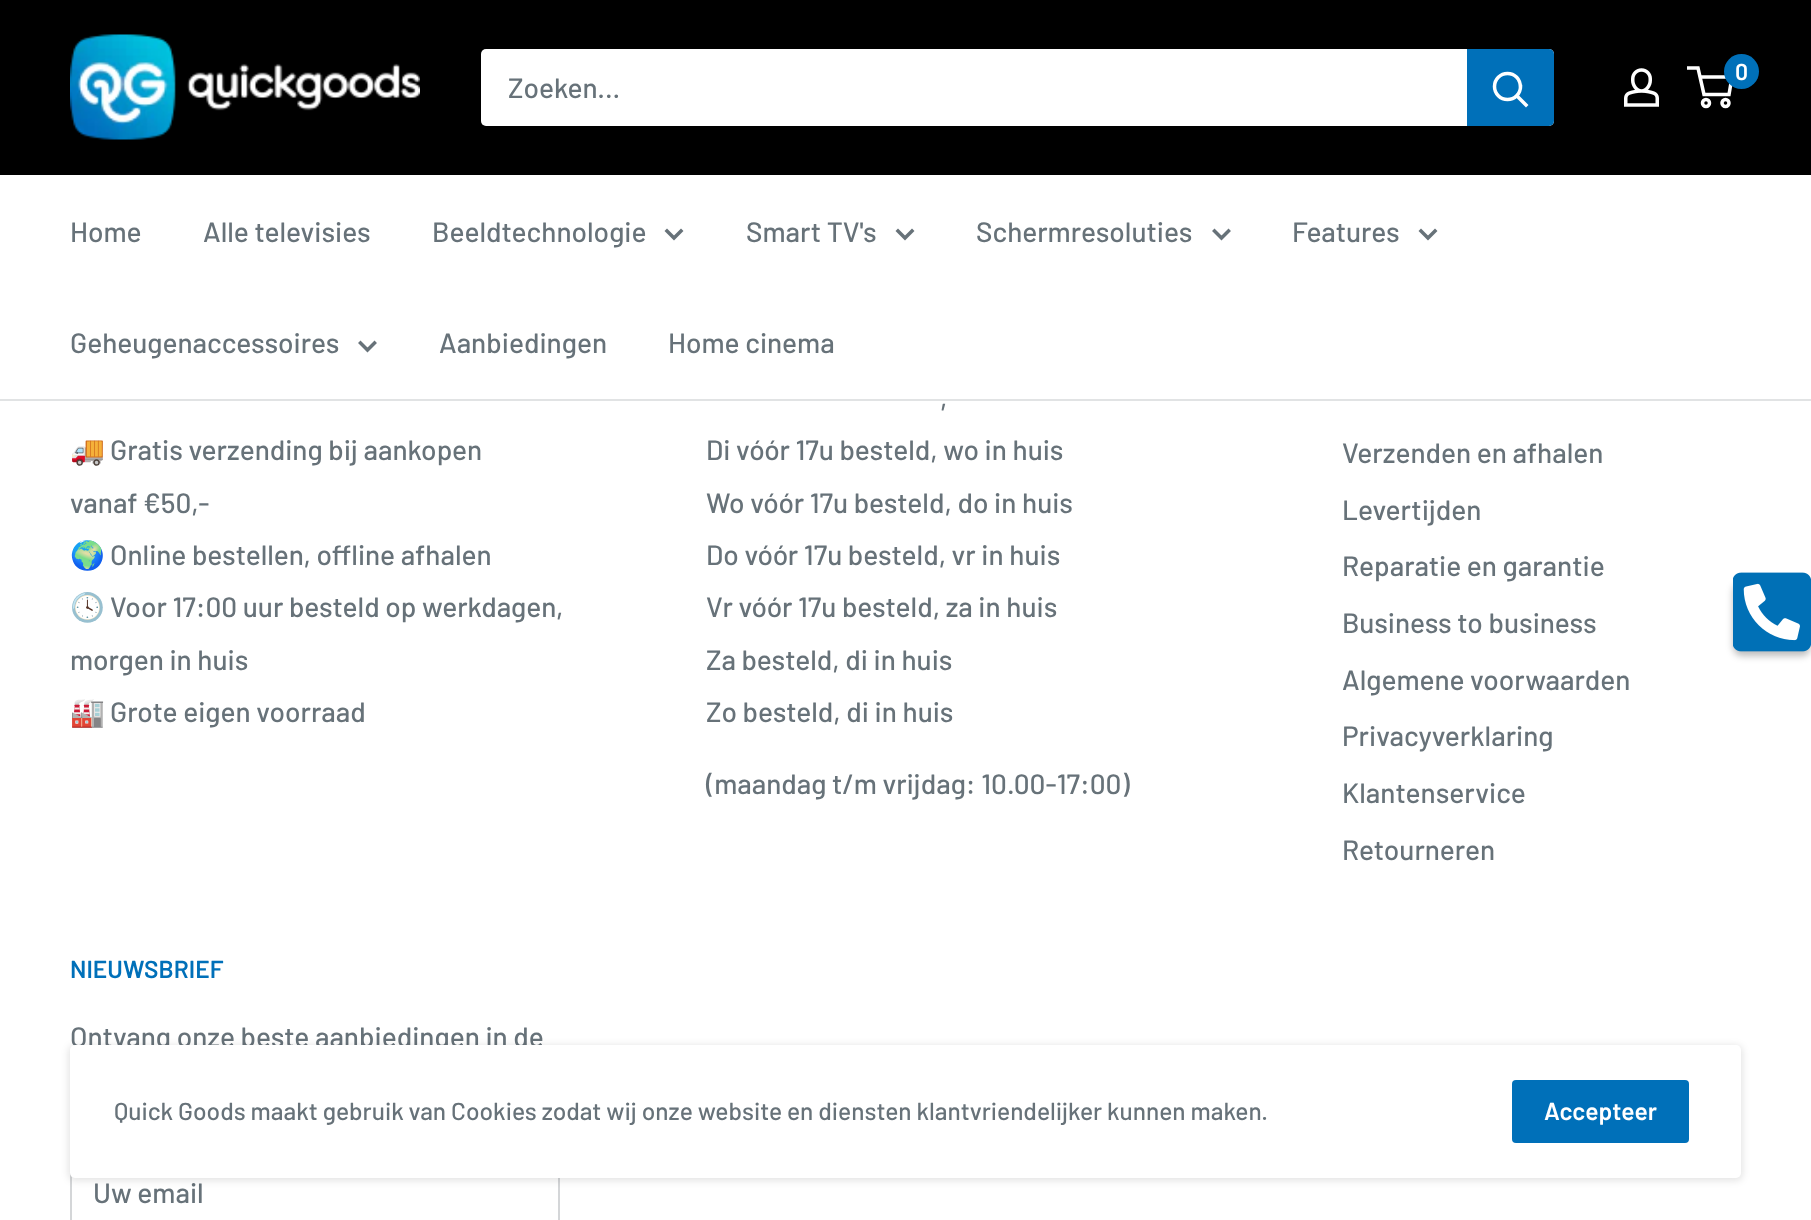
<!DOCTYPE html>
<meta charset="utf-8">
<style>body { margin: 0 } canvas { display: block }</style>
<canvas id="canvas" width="1811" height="1220"></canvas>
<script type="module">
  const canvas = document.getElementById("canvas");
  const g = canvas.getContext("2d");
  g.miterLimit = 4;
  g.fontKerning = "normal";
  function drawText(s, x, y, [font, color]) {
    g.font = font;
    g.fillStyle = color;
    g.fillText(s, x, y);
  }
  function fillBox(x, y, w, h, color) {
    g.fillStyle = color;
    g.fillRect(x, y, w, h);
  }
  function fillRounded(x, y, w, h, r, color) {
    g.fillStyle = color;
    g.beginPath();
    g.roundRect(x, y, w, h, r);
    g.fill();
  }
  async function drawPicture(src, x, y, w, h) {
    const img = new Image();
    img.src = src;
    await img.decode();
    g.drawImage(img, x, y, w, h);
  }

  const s1 = ["600 23px Barlow", "#FFFFFF"];
  const s2 = ["500 28px Barlow", "#677279"];
  const s3 = ["28px Noto Color Emoji", "#677279"];
  const s4 = ["600 24.5px Barlow", "#0070B9"];
  const s5 = ["500 24.5px Barlow", "#677279"];
  const s6 = ["600 24.5px Barlow", "#FFFFFF"];

  fillBox(0, 0, 1811, 1220, "#FFFFFF");
  fillBox(0, 0, 1811, 175, "#000000");
  await drawPicture("pic1.png", 70, 34, 350, 106);
  await drawPicture("pic2.png", 1624, 68, 35, 39);
  g.beginPath();
  g.arc(1706, 103, 3.5, 0, Math.PI * 2);
  g.strokeStyle = "#FFFFFF";
  g.lineWidth = 3.5;
  g.stroke();
  g.beginPath();
  g.arc(1725.5, 103, 3.5, 0, Math.PI * 2);
  g.stroke();
  g.beginPath();
  g.moveTo(1700, 77);
  g.lineTo(1732, 77);
  g.lineTo(1729, 94.5);
  g.lineTo(1704, 94.5);
  g.lineTo(1698, 68);
  g.lineTo(1687, 68);
  g.stroke();
  g.fillStyle = "#0070B9";
  g.beginPath();
  g.arc(1741.5, 71.5, 17.5, 0, Math.PI * 2);
  g.fill();
  drawText("0", 1735, 80, s1);
  fillRounded(481, 49, 1073, 77, 5, "#FFFFFF");
  drawText("Zoeken...", 508, 98, s2);
  g.fillStyle = "#0070B9";
  g.beginPath();
  g.roundRect(1467, 49, 87, 77, [0, 5, 5, 0]);
  g.fill();
  g.beginPath();
  g.moveTo(1526, 105);
  g.lineTo(1517, 96);
  g.lineCap = "square";
  g.stroke();
  g.beginPath();
  g.arc(1507.5, 86.5, 13, 0, Math.PI * 2);
  g.stroke();
  fillBox(0, 399, 1811, 2, "#E1E3E4");
  drawText("Home", 70, 242, s2);
  drawText("Alle televisies", 203, 242, s2);
  drawText("Beeldtechnologie", 432, 242, s2);
  g.beginPath();
  g.moveTo(681, 231);
  g.lineTo(674, 238);
  g.lineTo(667, 231);
  g.strokeStyle = "#677279";
  g.stroke();
  drawText("Smart TV's", 746, 242, s2);
  g.beginPath();
  g.moveTo(912, 231);
  g.lineTo(905, 238);
  g.lineTo(898, 231);
  g.stroke();
  drawText("Schermresoluties", 976, 242, s2);
  g.beginPath();
  g.moveTo(1228.5, 231);
  g.lineTo(1221.5, 238);
  g.lineTo(1214.5, 231);
  g.stroke();
  drawText("Features", 1292, 242, s2);
  g.beginPath();
  g.moveTo(1435, 231);
  g.lineTo(1428, 238);
  g.lineTo(1421, 231);
  g.stroke();
  drawText("Geheugenaccessoires", 70, 353, s2);
  g.beginPath();
  g.moveTo(374.5, 343);
  g.lineTo(367.5, 350);
  g.lineTo(360.5, 343);
  g.stroke();
  drawText("Aanbiedingen", 439, 353, s2);
  drawText("Home cinema", 668, 353, s2);
  drawText("🚚", 70, 460, s3);
  drawText("Gratis verzending bij aankopen", 110, 460, s2);
  drawText("vanaf €50,-", 70, 513, s2);
  drawText("🌍", 70, 565, s3);
  drawText("Online bestellen, offline afhalen", 110, 565, s2);
  drawText("🕓", 70, 617, s3);
  drawText("Voor 17:00 uur besteld op werkdagen,", 110, 617, s2);
  drawText("morgen in huis", 70, 670, s2);
  drawText("🏭", 70, 722, s3);
  drawText("Grote eigen voorraad", 110, 722, s2);
  drawText(",", 940, 408, s2);
  drawText("Di vóór 17u besteld, wo in huis", 706, 460, s2);
  drawText("Wo vóór 17u besteld, do in huis", 706, 513, s2);
  drawText("Do vóór 17u besteld, vr in huis", 706, 565, s2);
  drawText("Vr vóór 17u besteld, za in huis", 706, 617, s2);
  drawText("Za besteld, di in huis", 706, 670, s2);
  drawText("Zo besteld, di in huis", 706, 722, s2);
  drawText("(maandag t/m vrijdag: 10.00-17:00)", 706, 794, s2);
  drawText("Verzenden en afhalen", 1342, 463, s2);
  drawText("Levertijden", 1342, 520, s2);
  drawText("Reparatie en garantie", 1342, 576, s2);
  drawText("Business to business", 1342, 633, s2);
  drawText("Algemene voorwaarden", 1342, 690, s2);
  drawText("Privacyverklaring", 1342, 746, s2);
  drawText("Klantenservice", 1342, 803, s2);
  drawText("Retourneren", 1342, 860, s2);
  drawText("NIEUWSBRIEF", 70, 978, s4);
  drawText("Ontvang onze beste aanbiedingen in de", 70, 1047, s2);
  g.strokeStyle = "#D4D6D8";
  g.lineWidth = 2;
  g.strokeRect(71, 1151, 488, 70);
  drawText("Uw email", 93, 1203, s2);
  g.fillStyle = "rgba(0, 0, 0, 0.1)";
  g.filter = "blur(3.5px)";
  g.beginPath();
  g.roundRect(68, 1045, 1675, 136, 7);
  g.fill();
  g.filter = "none";
  fillRounded(70, 1045, 1671, 133, 5, "#FFFFFF");
  drawText("Quick Goods maakt gebruik van Cookies zodat wij onze website en diensten klantvriendelijker kunnen maken.", 114, 1120, s5);
  fillRounded(1512, 1080, 177, 63, 4, "#0070B9");
  drawText("Accepteer", 1544, 1120, s6);
  g.fillStyle = "rgba(0, 0, 0, 0.26)";
  g.filter = "blur(3.5px)";
  g.beginPath();
  g.roundRect(1733, 583, 78, 73, 9);
  g.fill();
  g.filter = "none";
  fillRounded(1733, 574, 78, 74, 9, "#FFFFFF");
  await drawPicture("pic3.png", 1733, 572, 78, 80);
</script>
